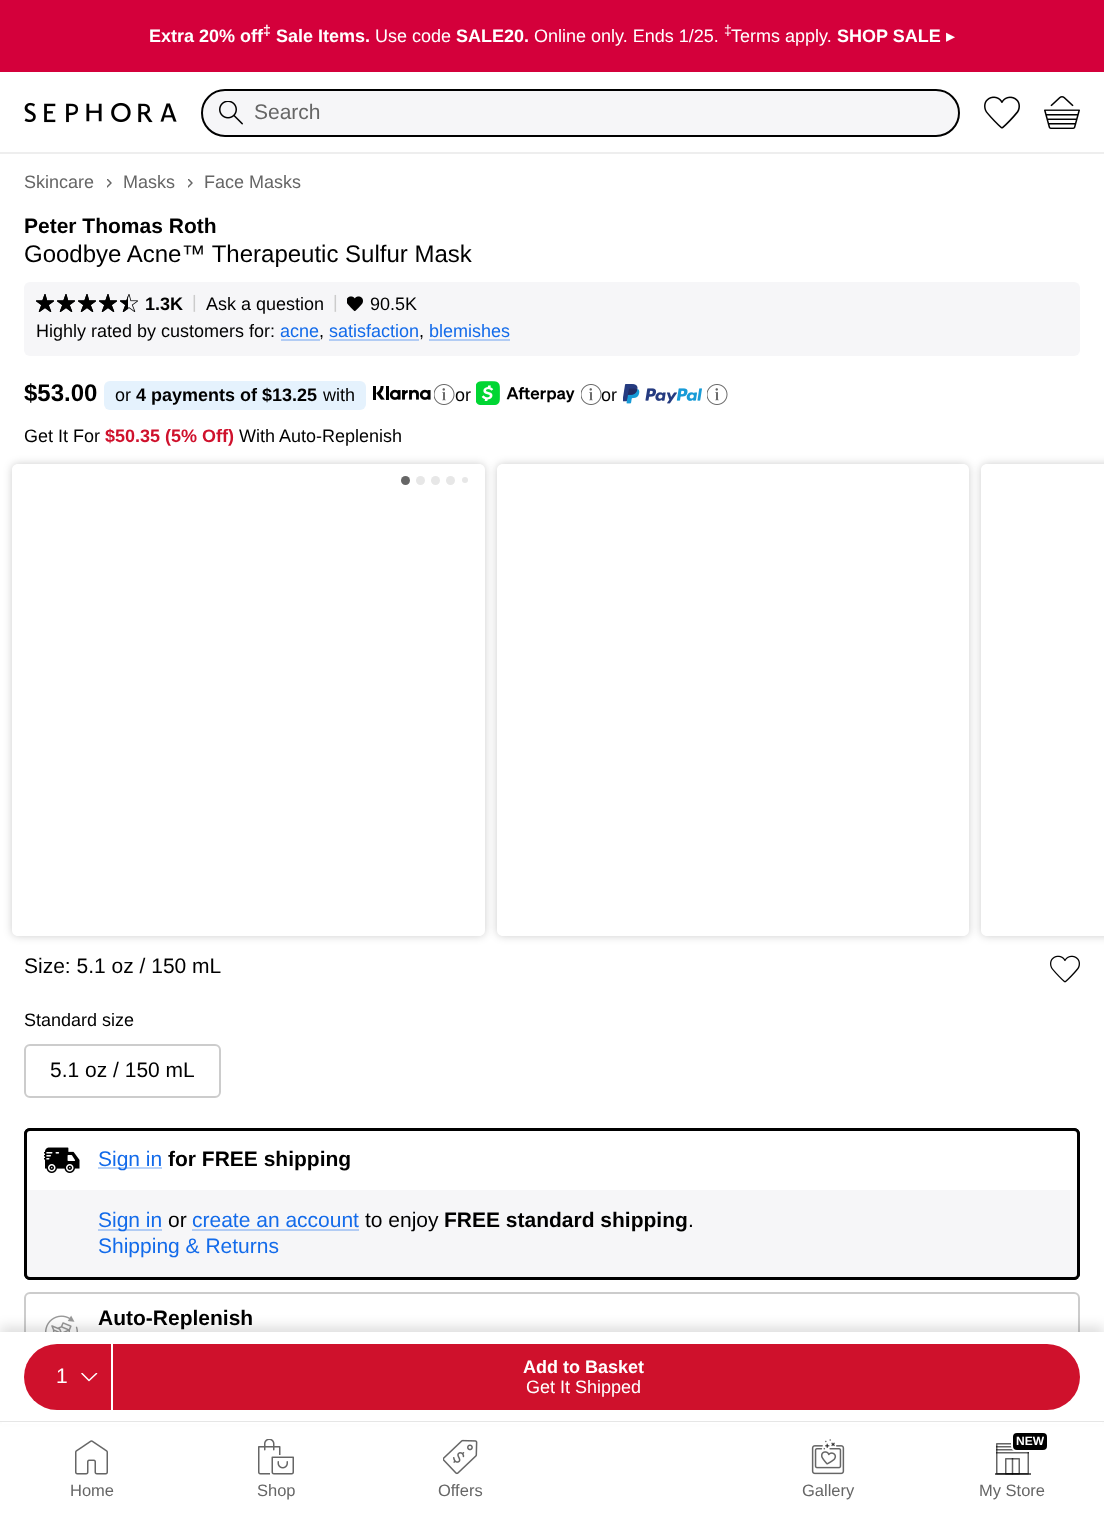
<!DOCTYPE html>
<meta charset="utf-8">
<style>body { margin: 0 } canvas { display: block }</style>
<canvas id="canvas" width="1104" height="1521"></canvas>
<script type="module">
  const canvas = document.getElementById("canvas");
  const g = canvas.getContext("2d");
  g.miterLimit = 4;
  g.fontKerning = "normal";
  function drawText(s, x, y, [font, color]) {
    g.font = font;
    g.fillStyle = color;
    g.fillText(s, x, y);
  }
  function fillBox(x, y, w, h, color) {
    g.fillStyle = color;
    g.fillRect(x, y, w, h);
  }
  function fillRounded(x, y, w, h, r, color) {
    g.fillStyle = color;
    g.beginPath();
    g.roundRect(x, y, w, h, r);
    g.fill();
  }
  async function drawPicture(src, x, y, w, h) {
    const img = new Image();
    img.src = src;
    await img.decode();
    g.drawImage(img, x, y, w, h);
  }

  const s1 = ["bold 18px Liberation Sans", "#FFFFFF"];
  const s2 = ["bold 14px Liberation Sans", "#FFFFFF"];
  const s3 = ["18px Liberation Sans", "#FFFFFF"];
  const s4 = ["14px Liberation Sans", "#FFFFFF"];
  const s5 = ["18px DejaVu Sans", "#FFFFFF"];
  const s6 = ["21px Liberation Sans", "#666666"];
  const s7 = ["16.5px Liberation Sans", "#666666"];
  const s8 = ["bold 12px Liberation Sans", "#FFFFFF"];
  const s9 = ["18px Liberation Sans", "#666666"];
  const s10 = ["bold 21px Liberation Sans", "#000000"];
  const s11 = ["24px Liberation Sans", "#000000"];
  const s12 = ["bold 18px Liberation Sans", "#000000"];
  const s13 = ["18px Liberation Sans", "#CCCCCC"];
  const s14 = ["18px Liberation Sans", "#000000"];
  const s15 = ["18px Liberation Sans", "#136BEA"];
  const s16 = ["bold 24px Liberation Sans", "#000000"];
  const s17 = ["bold 18px Liberation Sans", "#CF112C"];
  const s18 = ["21px Liberation Sans", "#000000"];
  const s19 = ["21px Liberation Sans", "#136BEA"];
  const s20 = ["21px Liberation Sans", "#FFFFFF"];

  fillBox(0, 0, 1104, 1521, "#FFFFFF");
  fillBox(0, 0, 1104, 72, "#D4003B");
  drawText("Extra 20% off", 149, 42, s1);
  drawText("‡", 263, 35, s2);
  drawText("Sale Items.", 276, 42, s1);
  drawText("Use code", 375, 42, s3);
  drawText("SALE20.", 456, 42, s1);
  drawText("Online only. Ends 1/25.", 534, 42, s3);
  drawText("‡", 724, 35, s4);
  drawText("Terms apply.", 731, 42, s3);
  drawText("SHOP SALE", 837, 42, s1);
  drawText("▸", 946, 42, s5);
  fillBox(0, 152, 1104, 2, "#EEEEEE");
  await drawPicture("pic1.png", 24, 102, 153, 21);
  g.fillStyle = "#F6F6F8";
  g.beginPath();
  g.roundRect(202, 90, 757, 46, 23);
  g.fill();
  g.strokeStyle = "#000000";
  g.lineWidth = 2;
  g.stroke();
  await drawPicture("pic2.png", 219, 101, 24, 24);
  drawText("Search", 254, 119, s6);
  await drawPicture("pic3.png", 984, 96, 36, 33);
  await drawPicture("pic4.png", 1044, 96, 36, 33);
  g.beginPath();
  g.roundRect(25, 1293, 1054, 80, 5);
  g.strokeStyle = "#CCCCCC";
  g.stroke();
  await drawPicture("pic21.png", 45, 1315, 33, 17);
  g.fillStyle = "rgba(0, 0, 0, 0.12)";
  g.filter = "blur(6px)";
  g.beginPath();
  g.rect(0, 1326, 1104, 90);
  g.fill();
  g.filter = "none";
  fillBox(0, 1421, 1104, 1, "#E6E6E6");
  fillBox(2, 1422, 1100, 2, "#FFFFFF");
  await drawPicture("pic5.png", 75, 1440, 33, 35);
  drawText("Home", 70, 1496, s7);
  await drawPicture("pic6.png", 258, 1439, 36, 36);
  drawText("Shop", 257, 1496, s7);
  await drawPicture("pic7.png", 443, 1439, 35, 36);
  drawText("Offers", 438, 1496, s7);
  await drawPicture("pic8.png", 811, 1439, 34, 36);
  drawText("Gallery", 802, 1496, s7);
  await drawPicture("pic9.png", 995, 1443, 36, 32);
  g.fillStyle = "#000000";
  g.beginPath();
  g.roundRect(1012, 1432, 36, 19, 5);
  g.fill();
  g.strokeStyle = "#FFFFFF";
  g.stroke();
  drawText("NEW", 1016, 1445, s8);
  drawText("My Store", 979, 1496, s7);
  drawText("Skincare", 24, 188, s9);
  g.save();
  g.beginPath();
  g.rect(107, 179, 5, 9);
  g.clip();
  g.beginPath();
  g.moveTo(107, 187);
  g.lineTo(111, 183);
  g.lineTo(107, 179);
  g.strokeStyle = "#666666";
  g.lineWidth = 1.5;
  g.lineCap = "round";
  g.lineJoin = "round";
  g.stroke();
  g.restore();
  drawText("Masks", 123, 188, s9);
  g.save();
  g.beginPath();
  g.rect(188, 179, 5, 9);
  g.clip();
  g.beginPath();
  g.moveTo(188, 187);
  g.lineTo(192, 183);
  g.lineTo(188, 179);
  g.strokeStyle = "#666666";
  g.lineWidth = 1.5;
  g.lineCap = "round";
  g.lineJoin = "round";
  g.stroke();
  g.restore();
  drawText("Face Masks", 204, 188, s9);
  drawText("Peter Thomas Roth", 24, 233, s10);
  drawText("Goodbye Acne™ Therapeutic Sulfur Mask", 24, 262, s11);
  fillRounded(24, 282, 1056, 74, 6, "#F6F6F8");
  await drawPicture("pic10.png", 36, 294, 18, 18);
  await drawPicture("pic10.png", 57, 294, 18, 18);
  await drawPicture("pic10.png", 78, 294, 18, 18);
  await drawPicture("pic10.png", 99, 294, 18, 18);
  await drawPicture("pic10.png", 120, 294, 18, 18);
  await drawPicture("pic11.png", 36, 294, 18, 18);
  await drawPicture("pic11.png", 57, 294, 18, 18);
  await drawPicture("pic11.png", 78, 294, 18, 18);
  await drawPicture("pic11.png", 99, 294, 18, 18);
  await drawPicture("pic12.png", 120, 296, 8, 16);
  drawText("1.3K", 145, 310, s12);
  drawText("|", 192, 308, s13);
  drawText("Ask a question", 206, 310, s14);
  drawText("|", 333, 308, s13);
  await drawPicture("pic13.png", 347, 296, 16, 16);
  drawText("90.5K", 370, 310, s14);
  drawText("Highly rated by customers for:", 36, 337, s14);
  drawText("acne", 280, 337, s15);
  fillBox(281, 339, 39, 2, "#B2CCF4");
  drawText(",", 319, 337, s14);
  drawText("satisfaction", 329, 337, s15);
  fillBox(329, 339, 90, 2, "#B2CCF4");
  drawText(",", 419, 337, s14);
  drawText("blemishes", 429, 337, s15);
  fillBox(429, 339, 81, 2, "#B2CCF4");
  drawText("$53.00", 24, 401, s16);
  fillRounded(104, 381, 262, 29, 6, "#E5F2FD");
  drawText("or", 115, 401, s14);
  drawText("4 payments of $13.25", 136, 401, s12);
  drawText("with", 323, 401, s14);
  await drawPicture("pic14.png", 373, 386, 58, 14);
  await drawPicture("pic15.png", 434, 384, 21, 21);
  drawText("or", 455, 401, s14);
  await drawPicture("pic16.png", 476, 381, 99, 24);
  drawText("or", 601, 401, s14);
  await drawPicture("pic17.png", 581, 384, 21, 21);
  await drawPicture("pic18.png", 623, 384, 79, 20);
  await drawPicture("pic15.png", 707, 384, 21, 21);
  drawText("Get It For", 24, 442, s14);
  drawText("$50.35 (5% Off)", 105, 442, s17);
  drawText("With Auto-Replenish", 239, 442, s14);
  g.save();
  g.beginPath();
  g.moveTo(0, 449);
  g.lineTo(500, 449);
  g.lineTo(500, 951);
  g.lineTo(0, 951);
  g.closePath();
  g.moveTo(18, 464);
  g.lineTo(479, 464);
  g.bezierCurveTo(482.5, 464, 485, 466.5, 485, 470);
  g.lineTo(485, 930);
  g.bezierCurveTo(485, 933.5, 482.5, 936, 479, 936);
  g.lineTo(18, 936);
  g.bezierCurveTo(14.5, 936, 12, 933.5, 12, 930);
  g.lineTo(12, 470);
  g.bezierCurveTo(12, 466.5, 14.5, 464, 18, 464);
  g.closePath();
  g.clip("evenodd");
  g.fillStyle = "rgba(0, 0, 0, 0.2)";
  g.filter = "blur(4.5px)";
  g.beginPath();
  g.roundRect(12, 464, 473, 472, 6);
  g.fill();
  g.filter = "none";
  g.restore();
  g.save();
  g.beginPath();
  g.moveTo(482, 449);
  g.lineTo(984, 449);
  g.lineTo(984, 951);
  g.lineTo(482, 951);
  g.closePath();
  g.moveTo(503, 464);
  g.lineTo(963, 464);
  g.bezierCurveTo(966.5, 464, 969, 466.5, 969, 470);
  g.lineTo(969, 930);
  g.bezierCurveTo(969, 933.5, 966.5, 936, 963, 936);
  g.lineTo(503, 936);
  g.bezierCurveTo(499.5, 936, 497, 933.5, 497, 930);
  g.lineTo(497, 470);
  g.bezierCurveTo(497, 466.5, 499.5, 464, 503, 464);
  g.closePath();
  g.clip("evenodd");
  g.fillStyle = "rgba(0, 0, 0, 0.2)";
  g.filter = "blur(4.5px)";
  g.beginPath();
  g.roundRect(497, 464, 472, 472, 6);
  g.fill();
  g.filter = "none";
  g.restore();
  g.save();
  g.beginPath();
  g.moveTo(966, 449);
  g.lineTo(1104, 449);
  g.lineTo(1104, 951);
  g.lineTo(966, 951);
  g.closePath();
  g.moveTo(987, 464);
  g.lineTo(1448, 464);
  g.bezierCurveTo(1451.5, 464, 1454, 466.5, 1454, 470);
  g.lineTo(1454, 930);
  g.bezierCurveTo(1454, 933.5, 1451.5, 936, 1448, 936);
  g.lineTo(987, 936);
  g.bezierCurveTo(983.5, 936, 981, 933.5, 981, 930);
  g.lineTo(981, 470);
  g.bezierCurveTo(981, 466.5, 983.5, 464, 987, 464);
  g.closePath();
  g.clip("evenodd");
  g.fillStyle = "rgba(0, 0, 0, 0.2)";
  g.filter = "blur(4.5px)";
  g.beginPath();
  g.roundRect(981, 464, 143, 472, 6);
  g.fill();
  g.filter = "none";
  g.restore();
  g.fillStyle = "#666666";
  g.beginPath();
  g.arc(405.5, 480.5, 4.5, 0, Math.PI * 2);
  g.fill();
  g.fillStyle = "#E7E7E7";
  g.beginPath();
  g.arc(420.5, 480.5, 4.5, 0, Math.PI * 2);
  g.fill();
  g.beginPath();
  g.arc(435.5, 480.5, 4.5, 0, Math.PI * 2);
  g.fill();
  g.beginPath();
  g.arc(450.5, 480.5, 4.5, 0, Math.PI * 2);
  g.fill();
  g.beginPath();
  g.arc(465, 480, 3, 0, Math.PI * 2);
  g.fill();
  drawText("Size: 5.1 oz / 150 mL", 24, 973, s18);
  await drawPicture("pic19.png", 1050, 955, 30, 28);
  drawText("Standard size", 24, 1026, s14);
  g.beginPath();
  g.roundRect(25, 1045, 195, 52, 5);
  g.strokeStyle = "#CCCCCC";
  g.stroke();
  drawText("5.1 oz / 150 mL", 50, 1077, s18);
  g.beginPath();
  g.roundRect(25, 1129, 1054, 150, 5);
  g.strokeStyle = "#000000";
  g.stroke();
  await drawPicture("pic20.png", 44, 1147, 36, 26);
  fillBox(98, 1167, 64, 2, "#B8D3F9");
  fillBox(27, 1190, 1052, 88, "#F6F6F8");
  fillBox(98, 1229, 64, 2, "#B2CCF4");
  fillBox(192, 1229, 167, 2, "#B2CCF4");
  g.beginPath();
  g.roundRect(25.5, 1129.5, 1053, 149, 4.5);
  g.lineWidth = 3;
  g.stroke();
  drawText("Sign in", 98, 1166, s19);
  drawText("for FREE shipping", 168, 1166, s10);
  drawText("Sign in", 98, 1227, s19);
  drawText("or", 168, 1227, s18);
  drawText("create an account", 192, 1227, s19);
  drawText("to enjoy", 365, 1227, s18);
  drawText("FREE standard shipping", 444, 1227, s10);
  drawText(".", 688, 1227, s18);
  drawText("Shipping & Returns", 98, 1253, s19);
  drawText("Auto-Replenish", 98, 1325, s10);
  fillBox(0, 1332, 1104, 89, "#FFFFFF");
  fillRounded(24, 1344, 1056, 66, 33, "#CF112C");
  fillBox(111, 1344, 2, 66, "#FFFFFF");
  drawText("1", 56, 1383, s20);
  g.save();
  g.beginPath();
  g.rect(81, 1373, 17, 9);
  g.clip();
  g.beginPath();
  g.moveTo(82, 1373.5);
  g.lineTo(89, 1380.5);
  g.lineTo(96.5, 1373.5);
  g.strokeStyle = "#FFFFFF";
  g.lineWidth = 1.5;
  g.lineCap = "round";
  g.lineJoin = "round";
  g.stroke();
  g.restore();
  drawText("Add to Basket", 523, 1373, s1);
  drawText("Get It Shipped", 526, 1393, s3);
</script>
